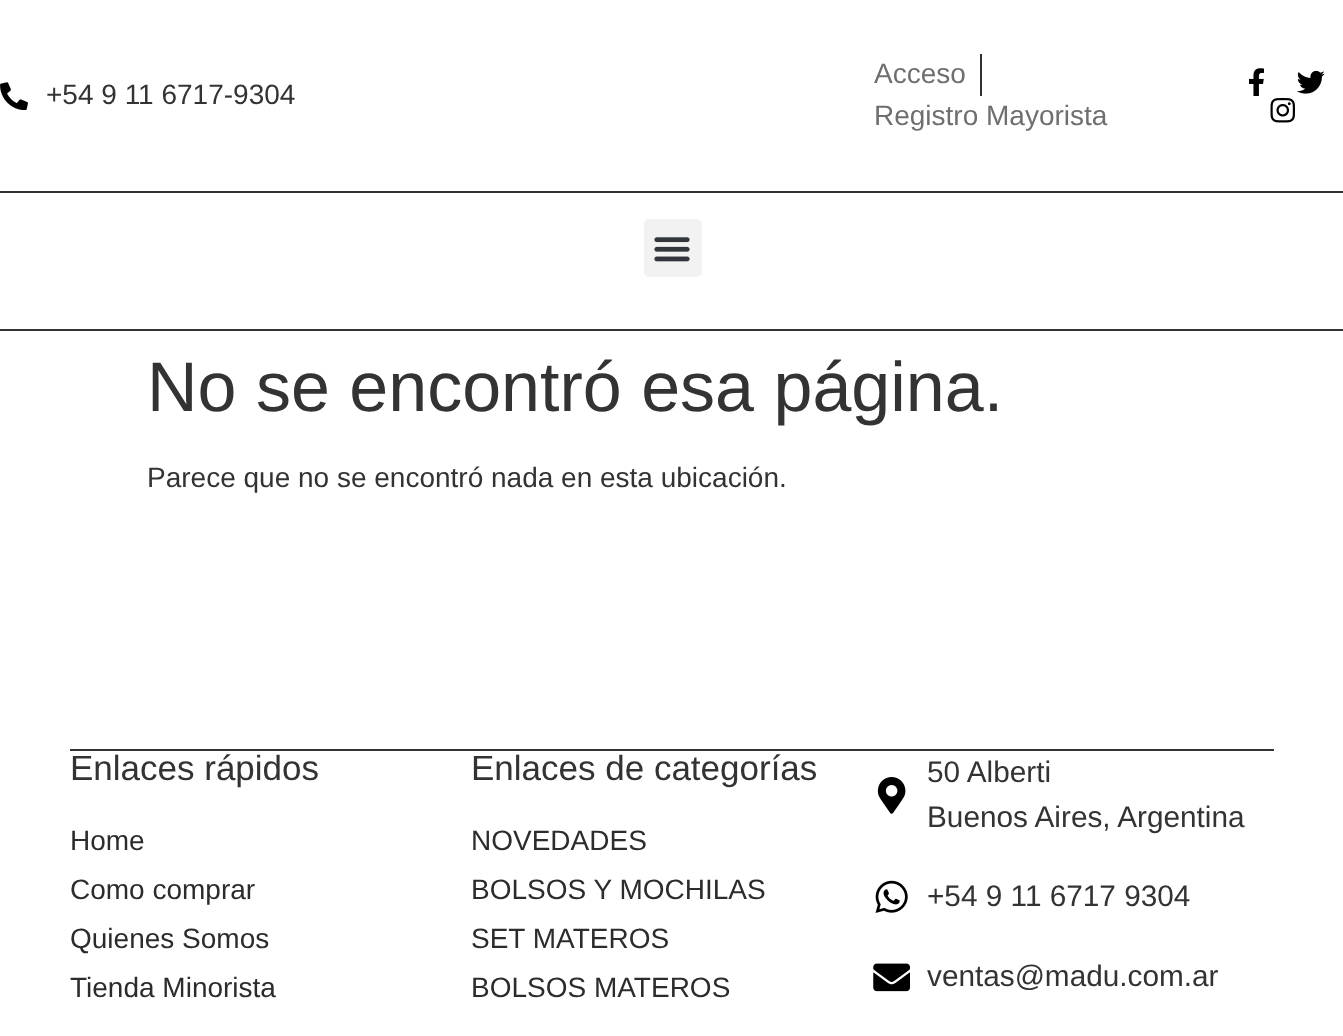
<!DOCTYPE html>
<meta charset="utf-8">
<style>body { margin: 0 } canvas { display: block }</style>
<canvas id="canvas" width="1343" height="1036"></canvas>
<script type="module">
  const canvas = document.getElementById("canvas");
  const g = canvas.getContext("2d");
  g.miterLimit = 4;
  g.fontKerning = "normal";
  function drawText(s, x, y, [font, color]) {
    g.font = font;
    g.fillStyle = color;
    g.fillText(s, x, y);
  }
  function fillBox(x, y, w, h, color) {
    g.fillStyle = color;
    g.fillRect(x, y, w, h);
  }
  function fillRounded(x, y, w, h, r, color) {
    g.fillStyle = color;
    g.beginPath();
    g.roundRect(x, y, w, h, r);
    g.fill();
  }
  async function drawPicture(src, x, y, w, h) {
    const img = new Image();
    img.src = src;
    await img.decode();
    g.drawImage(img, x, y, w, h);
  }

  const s1 = ["28px Liberation Sans", "#333333"];
  const s2 = ["28px Liberation Sans", "#6F6F6F"];
  const s3 = ["70px Liberation Sans", "#333333"];
  const s4 = ["35px Liberation Sans", "#333333"];
  const s5 = ["28px Liberation Sans", "#2C2C2C"];
  const s6 = ["29.75px Liberation Sans", "#333333"];

  fillBox(0, 0, 1343, 1036, "#FFFFFF");
  await drawPicture("pic1.png", 0, 82, 28, 28);
  drawText("+54 9 11 6717-9304", 46, 104, s1);
  drawText("Acceso", 874, 83, s2);
  fillBox(980, 54, 2, 42, "#313131");
  drawText("Registro Mayorista", 874, 125, s2);
  await drawPicture("pic2.png", 1249, 68, 15, 28);
  await drawPicture("pic3.png", 1297, 70, 28, 24);
  await drawPicture("pic4.png", 1270, 98, 25, 25);
  fillBox(0, 191, 1343, 2, "#333333");
  fillBox(0, 329, 1343, 2, "#333333");
  fillRounded(644, 219, 58, 58, 5, "#F2F2F2");
  await drawPicture("pic5.png", 654, 237, 36, 25);
  drawText("No se encontró esa página.", 147, 411, s3);
  drawText("Parece que no se encontró nada en esta ubicación.", 147, 487, s1);
  fillBox(70, 749, 1204, 2, "#333333");
  drawText("Enlaces rápidos", 70, 780, s4);
  drawText("Home", 70, 850, s5);
  drawText("Como comprar", 70, 899, s5);
  drawText("Quienes Somos", 70, 948, s5);
  drawText("Tienda Minorista", 70, 997, s5);
  drawText("Enlaces de categorías", 471, 780, s4);
  drawText("NOVEDADES", 471, 850, s5);
  drawText("BOLSOS Y MOCHILAS", 471, 899, s5);
  drawText("SET MATEROS", 471, 948, s5);
  drawText("BOLSOS MATEROS", 471, 997, s5);
  await drawPicture("pic6.png", 877, 777, 29, 37);
  drawText("50 Alberti", 927, 782, s6);
  drawText("Buenos Aires, Argentina", 927, 827, s6);
  await drawPicture("pic7.png", 875, 880, 33, 33);
  drawText("+54 9 11 6717 9304", 927, 906, s6);
  await drawPicture("pic8.png", 873, 963, 37, 29);
  drawText("ventas@madu.com.ar", 927, 986, s6);
</script>
